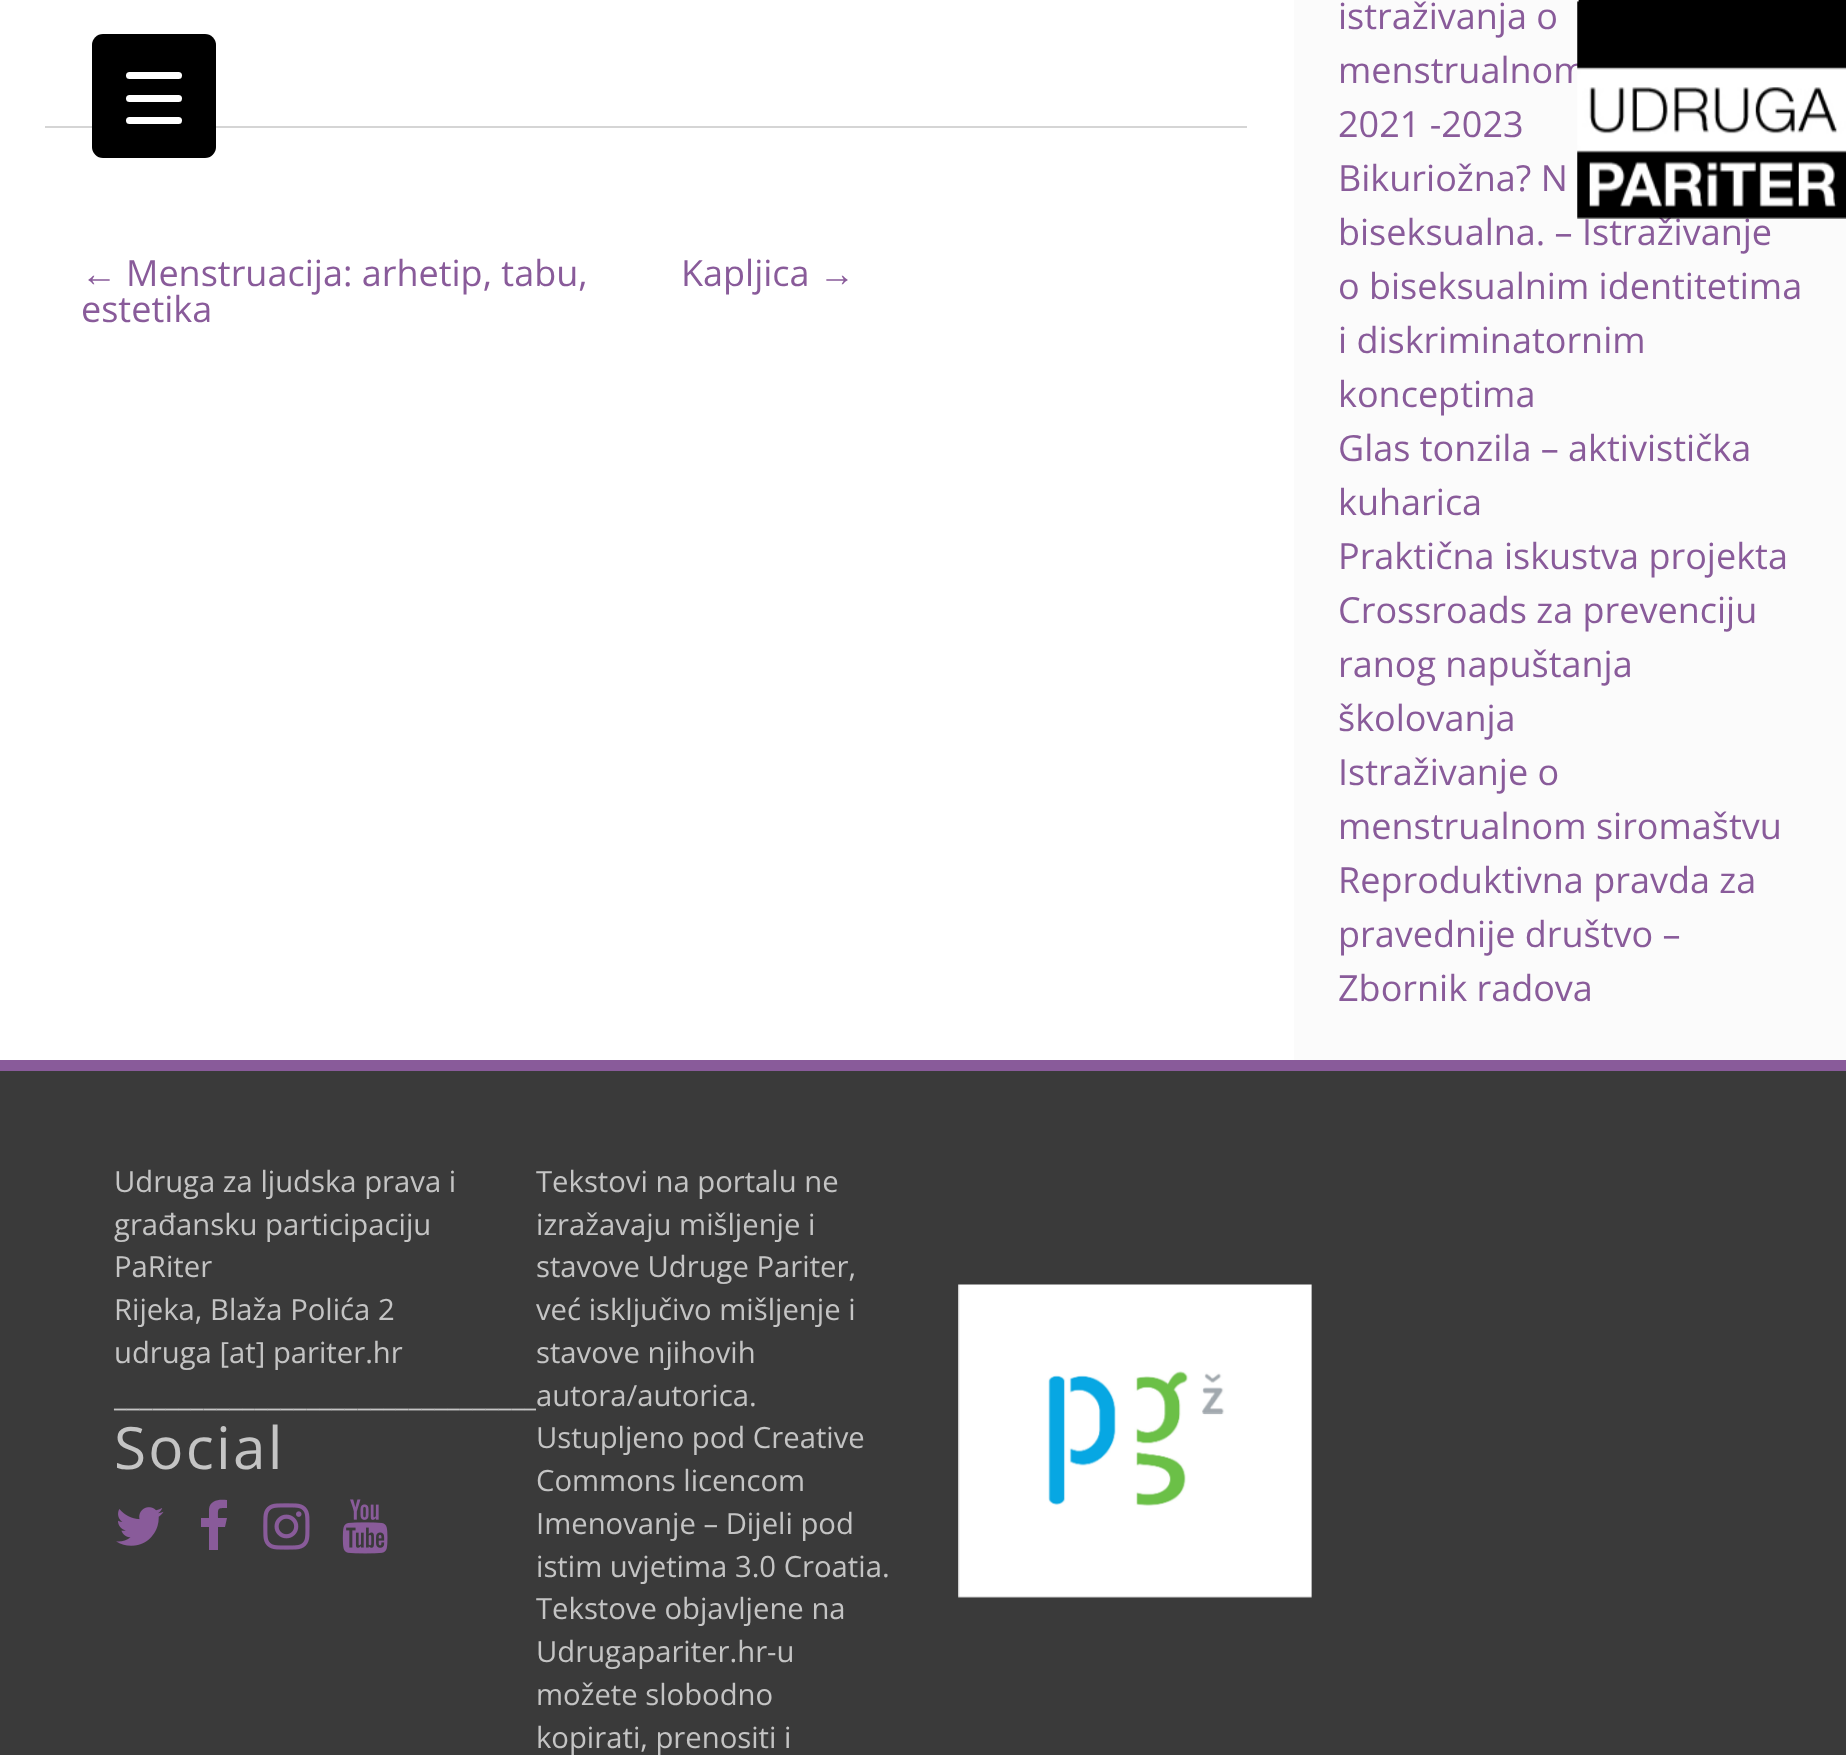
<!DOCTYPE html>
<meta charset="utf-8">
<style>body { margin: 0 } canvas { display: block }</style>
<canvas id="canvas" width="1846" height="1755"></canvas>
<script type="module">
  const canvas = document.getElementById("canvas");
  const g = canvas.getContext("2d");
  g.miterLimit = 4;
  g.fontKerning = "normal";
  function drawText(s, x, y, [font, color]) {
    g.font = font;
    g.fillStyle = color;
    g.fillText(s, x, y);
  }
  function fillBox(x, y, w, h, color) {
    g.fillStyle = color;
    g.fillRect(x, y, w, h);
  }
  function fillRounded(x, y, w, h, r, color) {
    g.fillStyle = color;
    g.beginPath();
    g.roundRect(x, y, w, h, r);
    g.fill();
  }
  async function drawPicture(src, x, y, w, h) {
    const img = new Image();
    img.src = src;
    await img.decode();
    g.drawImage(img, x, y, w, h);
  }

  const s1 = ["36px Open Sans", "#895B9A"];
  const s2 = ["36px Liberation Sans", "#895B9A"];
  const s3 = ["29.25px Open Sans", "#C4C4C4"];
  const s4 = ["58.5px Open Sans", "#C4C4C4"];

  fillBox(0, 0, 1846, 1755, "#FFFFFF");
  fillBox(1294, 0, 552, 1060, "#FBFBFB");
  drawText("menstrualnom", 1338, 83, s1);
  drawText("biseksualna. – Istraživanje", 1338, 245, s1);
  await drawPicture("pic1.png", 1577, 0, 269, 219);
  fillBox(45, 126, 1202, 2, "#D5D5D5");
  drawText("←", 81, 286, s2);
  drawText("Menstruacija: arhetip, tabu,", 126, 286, s1);
  drawText("estetika", 81, 322, s1);
  drawText("Kapljica", 681, 286, s1);
  drawText("→", 819, 286, s2);
  drawText("istraživanja o", 1338, 29, s1);
  drawText("2021 -2023", 1338, 137, s1);
  drawText("Bikuriožna? N", 1338, 191, s1);
  drawText("o biseksualnim identitetima", 1338, 299, s1);
  drawText("i diskriminatornim", 1338, 353, s1);
  drawText("konceptima", 1338, 407, s1);
  drawText("Glas tonzila – aktivistička", 1338, 461, s1);
  drawText("kuharica", 1338, 515, s1);
  drawText("Praktična iskustva projekta", 1338, 569, s1);
  drawText("Crossroads za prevenciju", 1338, 623, s1);
  drawText("ranog napuštanja", 1338, 677, s1);
  drawText("školovanja", 1338, 731, s1);
  drawText("Istraživanje o", 1338, 785, s1);
  drawText("menstrualnom siromaštvu", 1338, 839, s1);
  drawText("Reproduktivna pravda za", 1338, 893, s1);
  drawText("pravednije društvo –", 1338, 947, s1);
  drawText("Zbornik radova", 1338, 1001, s1);
  fillBox(0, 1071, 1846, 684, "#3A3A3A");
  fillBox(0, 1060, 1846, 11, "#895B9A");
  drawText("Udruga za ljudska prava i", 114, 1192, s3);
  drawText("građansku participaciju", 114, 1235, s3);
  drawText("PaRiter", 114, 1277, s3);
  drawText("Rijeka, Blaža Polića 2", 114, 1320, s3);
  drawText("udruga [at] pariter.hr", 114, 1363, s3);
  drawText("_________________________________", 114, 1406, s3);
  g.letterSpacing = "2.25px";
  drawText("Social", 114, 1469, s4);
  await drawPicture("pic2.png", 116, 1507, 48, 39);
  g.fillStyle = "#895B9A";
  g.beginPath();
  g.moveTo(227, 1500);
  g.lineTo(227, 1508);
  g.bezierCurveTo(217, 1508, 218, 1508, 218, 1518);
  g.lineTo(227, 1518);
  g.lineTo(225, 1527);
  g.lineTo(218, 1527);
  g.lineTo(218, 1550);
  g.lineTo(209, 1550);
  g.lineTo(209, 1527);
  g.lineTo(201, 1527);
  g.lineTo(201, 1518);
  g.lineTo(209, 1518);
  g.lineTo(209, 1509);
  g.bezierCurveTo(210, 1500, 219, 1499, 227, 1500);
  g.closePath();
  g.fill();
  await drawPicture("pic3.png", 263, 1503, 47, 47);
  await drawPicture("pic4.png", 342, 1499, 46, 55);
  fillBox(536, 1408, 1, 3, "#3A3A3A");
  g.letterSpacing = "0px";
  drawText("Tekstovi na portalu ne", 536, 1192, s3);
  drawText("izražavaju mišljenje i", 536, 1235, s3);
  drawText("stavove Udruge Pariter,", 536, 1277, s3);
  drawText("već isključivo mišljenje i", 536, 1320, s3);
  drawText("stavove njihovih", 536, 1363, s3);
  drawText("autora/autorica.", 536, 1406, s3);
  drawText("Ustupljeno pod Creative", 536, 1448, s3);
  drawText("Commons licencom", 536, 1491, s3);
  drawText("Imenovanje – Dijeli pod", 536, 1534, s3);
  drawText("istim uvjetima 3.0 Croatia.", 536, 1577, s3);
  drawText("Tekstove objavljene na", 536, 1619, s3);
  drawText("Udrugapariter.hr-u", 536, 1662, s3);
  drawText("možete slobodno", 536, 1705, s3);
  drawText("kopirati, prenositi i", 536, 1748, s3);
  await drawPicture("pic5.png", 958, 1284, 354, 314);
  fillRounded(92, 34, 124, 124, 11, "#000000");
  fillRounded(126, 95, 56, 7, 3.5, "#FFFFFF");
  fillRounded(126, 72, 56, 7, 3.5, "#FFFFFF");
  fillRounded(126, 117, 56, 7, 3.5, "#FFFFFF");
</script>
